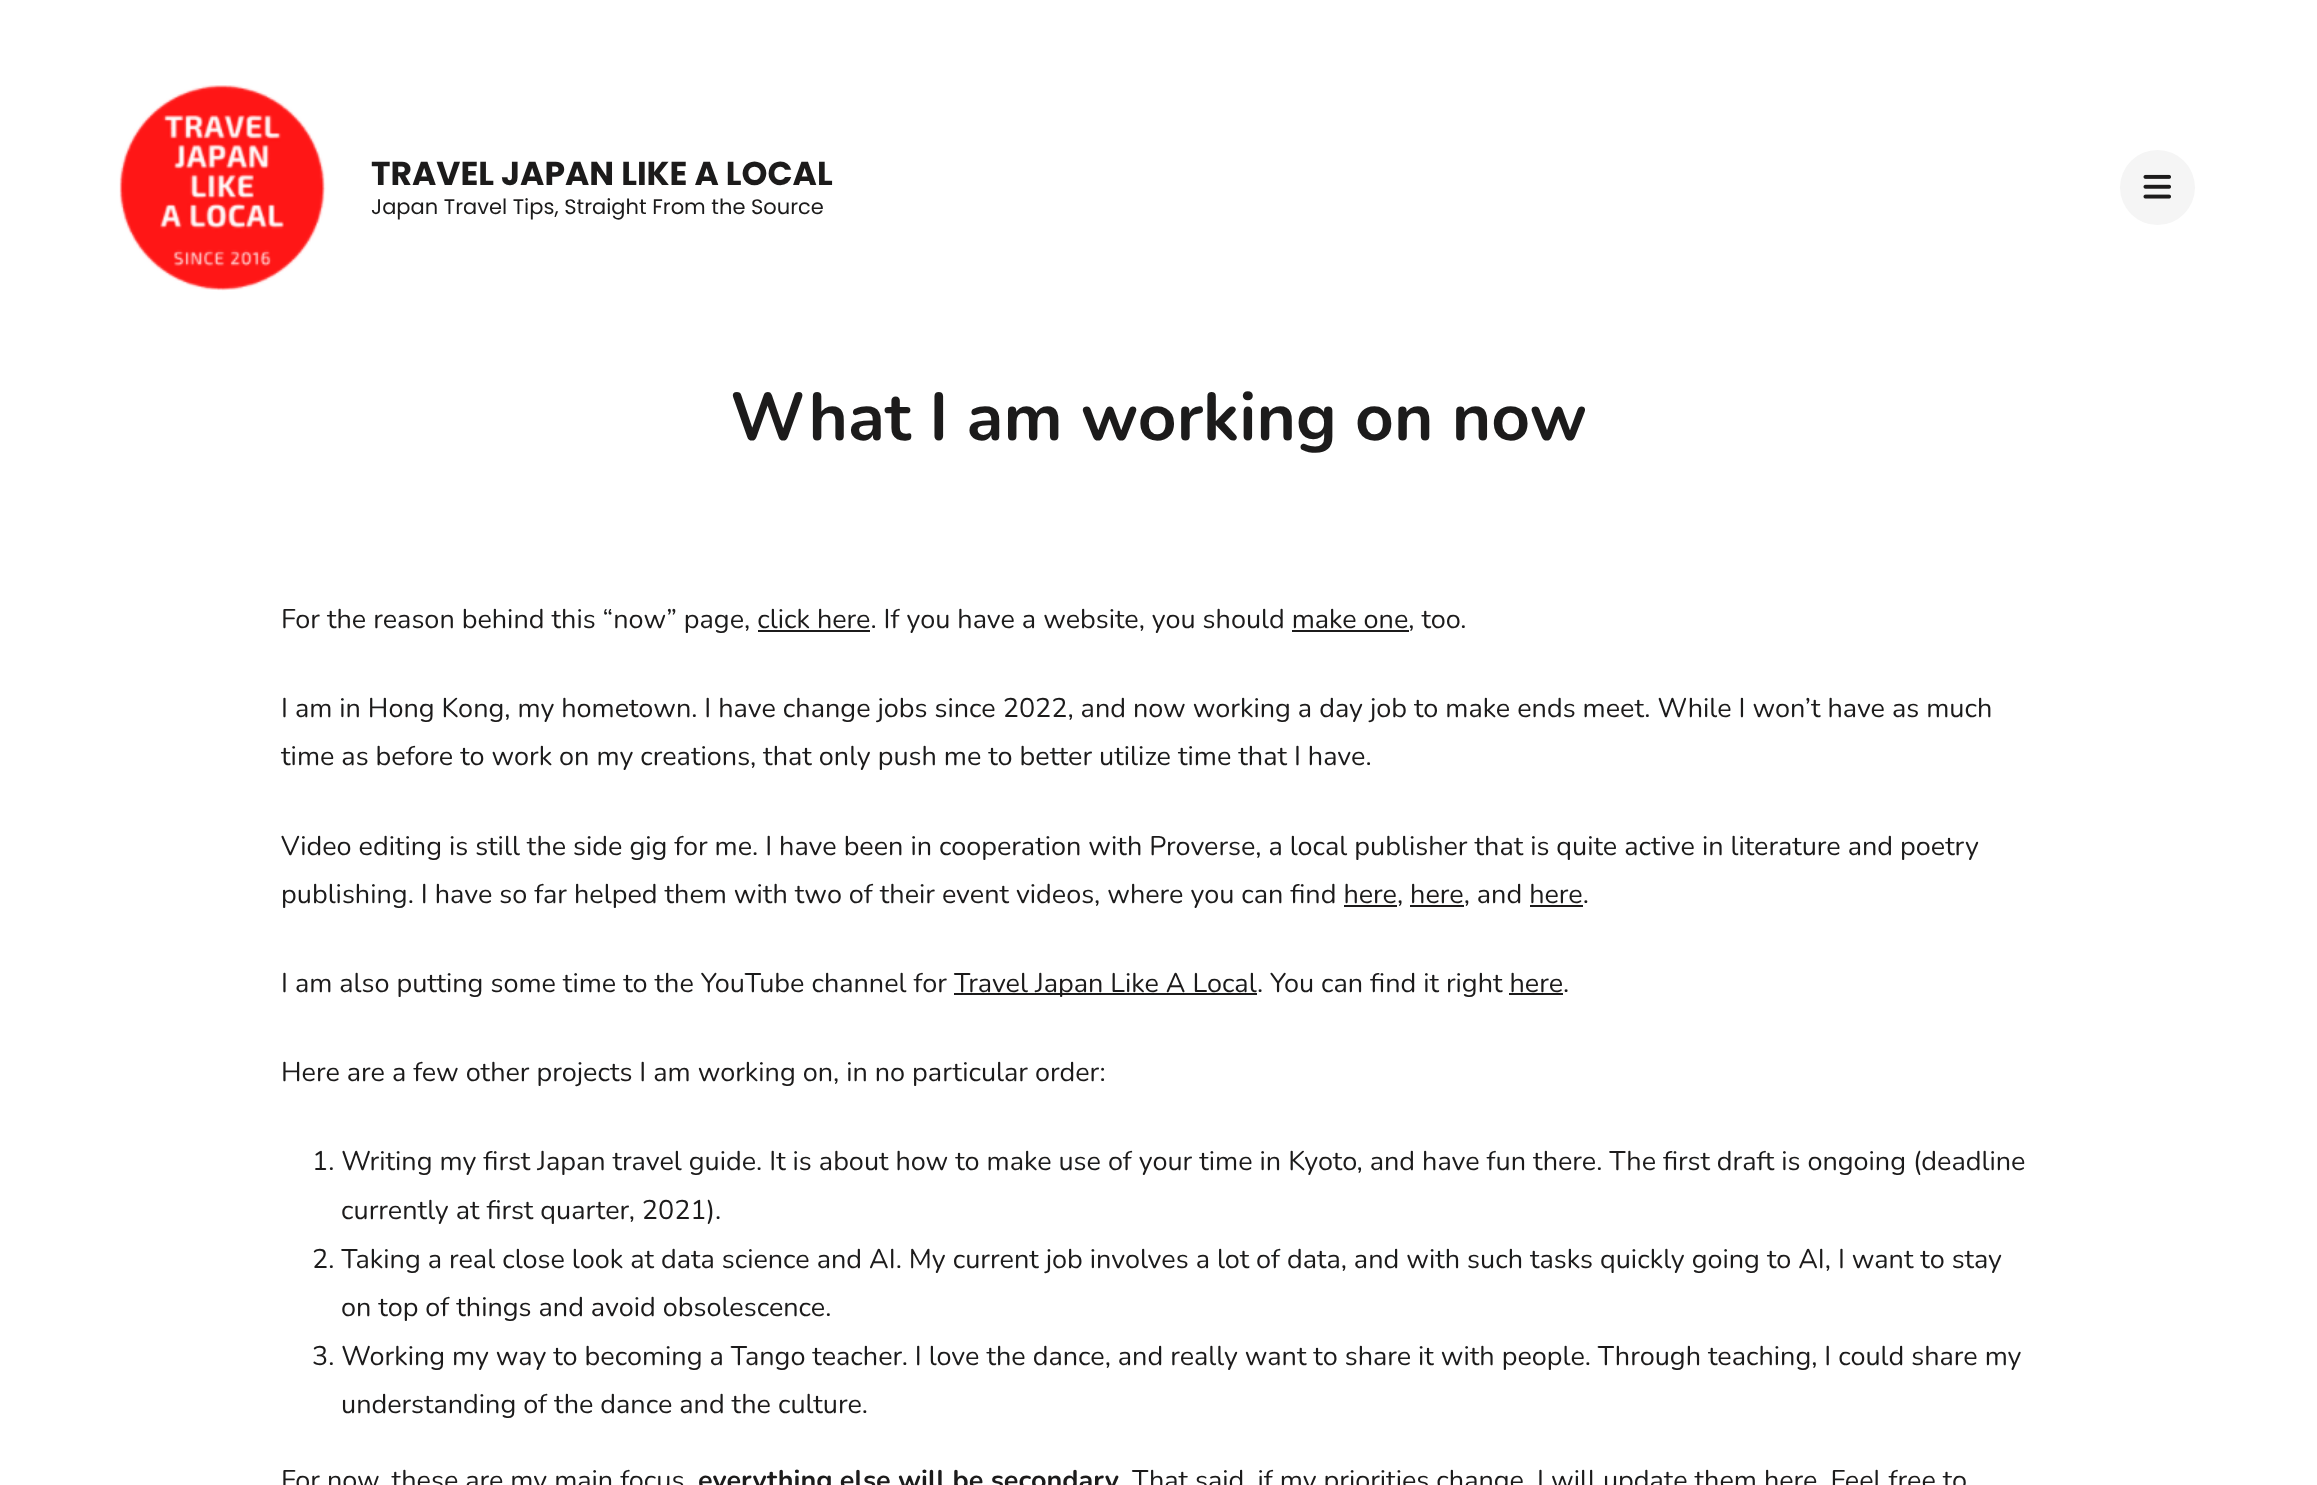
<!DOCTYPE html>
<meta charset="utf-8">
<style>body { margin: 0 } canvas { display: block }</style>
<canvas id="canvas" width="2317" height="1485"></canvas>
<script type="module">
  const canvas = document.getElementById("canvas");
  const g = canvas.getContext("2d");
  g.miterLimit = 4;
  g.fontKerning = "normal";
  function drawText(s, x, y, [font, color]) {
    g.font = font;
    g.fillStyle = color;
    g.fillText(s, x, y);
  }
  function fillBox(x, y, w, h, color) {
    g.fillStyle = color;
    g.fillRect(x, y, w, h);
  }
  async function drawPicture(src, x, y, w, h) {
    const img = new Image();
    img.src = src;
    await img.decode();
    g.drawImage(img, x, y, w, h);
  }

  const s1 = ["bold 33px Poppins", "#1C1B1B"];
  const s2 = ["21px Poppins", "#1C1B1B"];
  const s3 = ["bold 67.5px Nunito", "#1C1B1B"];
  const s4 = ["27px Nunito", "#1C1B1B"];
  const s5 = ["bold 27px Nunito", "#1C1B1B"];

  fillBox(0, 0, 2317, 1485, "#FFFFFF");
  await drawPicture("pic1.png", 119, 85, 207, 206);
  drawText("TRAVEL JAPAN LIKE A LOCAL", 371, 185, s1);
  drawText("Japan Travel Tips, Straight From the Source", 371, 214, s2);
  g.fillStyle = "#F5F5F5";
  g.beginPath();
  g.arc(2157.5, 187.5, 37.5, 0, Math.PI * 2);
  g.fill();
  await drawPicture("pic2.png", 2143, 174, 28, 25);
  drawText("What I am working on now", 730, 440, s3);
  drawText("For the reason behind this “now” page, click here. If you have a website, you should make one, too.", 281, 628, s4);
  fillBox(758, 630, 112, 2, "#1C1B1B");
  fillBox(1292, 630, 117, 2, "#1C1B1B");
  drawText("I am in Hong Kong, my hometown. I have change jobs since 2022, and now working a day job to make ends meet. While I won’t have as much", 281, 717, s4);
  drawText("time as before to work on my creations, that only push me to better utilize time that I have.", 281, 765, s4);
  drawText("Video editing is still the side gig for me. I have been in cooperation with Proverse, a local publisher that is quite active in literature and poetry", 281, 855, s4);
  drawText("publishing. I have so far helped them with two of their event videos, where you can find here, here, and here.", 281, 903, s4);
  fillBox(1344, 905, 53, 2, "#1C1B1B");
  fillBox(1410, 905, 54, 2, "#1C1B1B");
  fillBox(1530, 905, 53, 2, "#1C1B1B");
  drawText("I am also putting some time to the YouTube channel for", 281, 992, s4);
  fillBox(954, 993, 303, 2, "#1C1B1B");
  drawText("Travel Japan Like A Local. You can find it right here.", 954, 992, s4);
  fillBox(1509, 993, 54, 2, "#1C1B1B");
  drawText("Here are a few other projects I am working on, in no particular order:", 281, 1081, s4);
  drawText("1. Writing my first Japan travel guide. It is about how to make use of your time in Kyoto, and have fun there. The first draft is ongoing (deadline", 312, 1170, s4);
  drawText("currently at first quarter, 2021).", 341, 1219, s4);
  drawText("2. Taking a real close look at data science and AI. My current job involves a lot of data, and with such tasks quickly going to AI, I want to stay", 312, 1268, s4);
  drawText("on top of things and avoid obsolescence.", 341, 1316, s4);
  drawText("3. Working my way to becoming a Tango teacher. I love the dance, and really want to share it with people. Through teaching, I could share my", 312, 1365, s4);
  drawText("understanding of the dance and the culture.", 341, 1413, s4);
  drawText("For now, these are my main focus", 281, 1489, s4);
  drawText("everything else will be secondary", 698, 1489, s5);
  drawText("That said, if my priorities change, I will update them here. Feel free to", 1132, 1489, s4);
</script>
